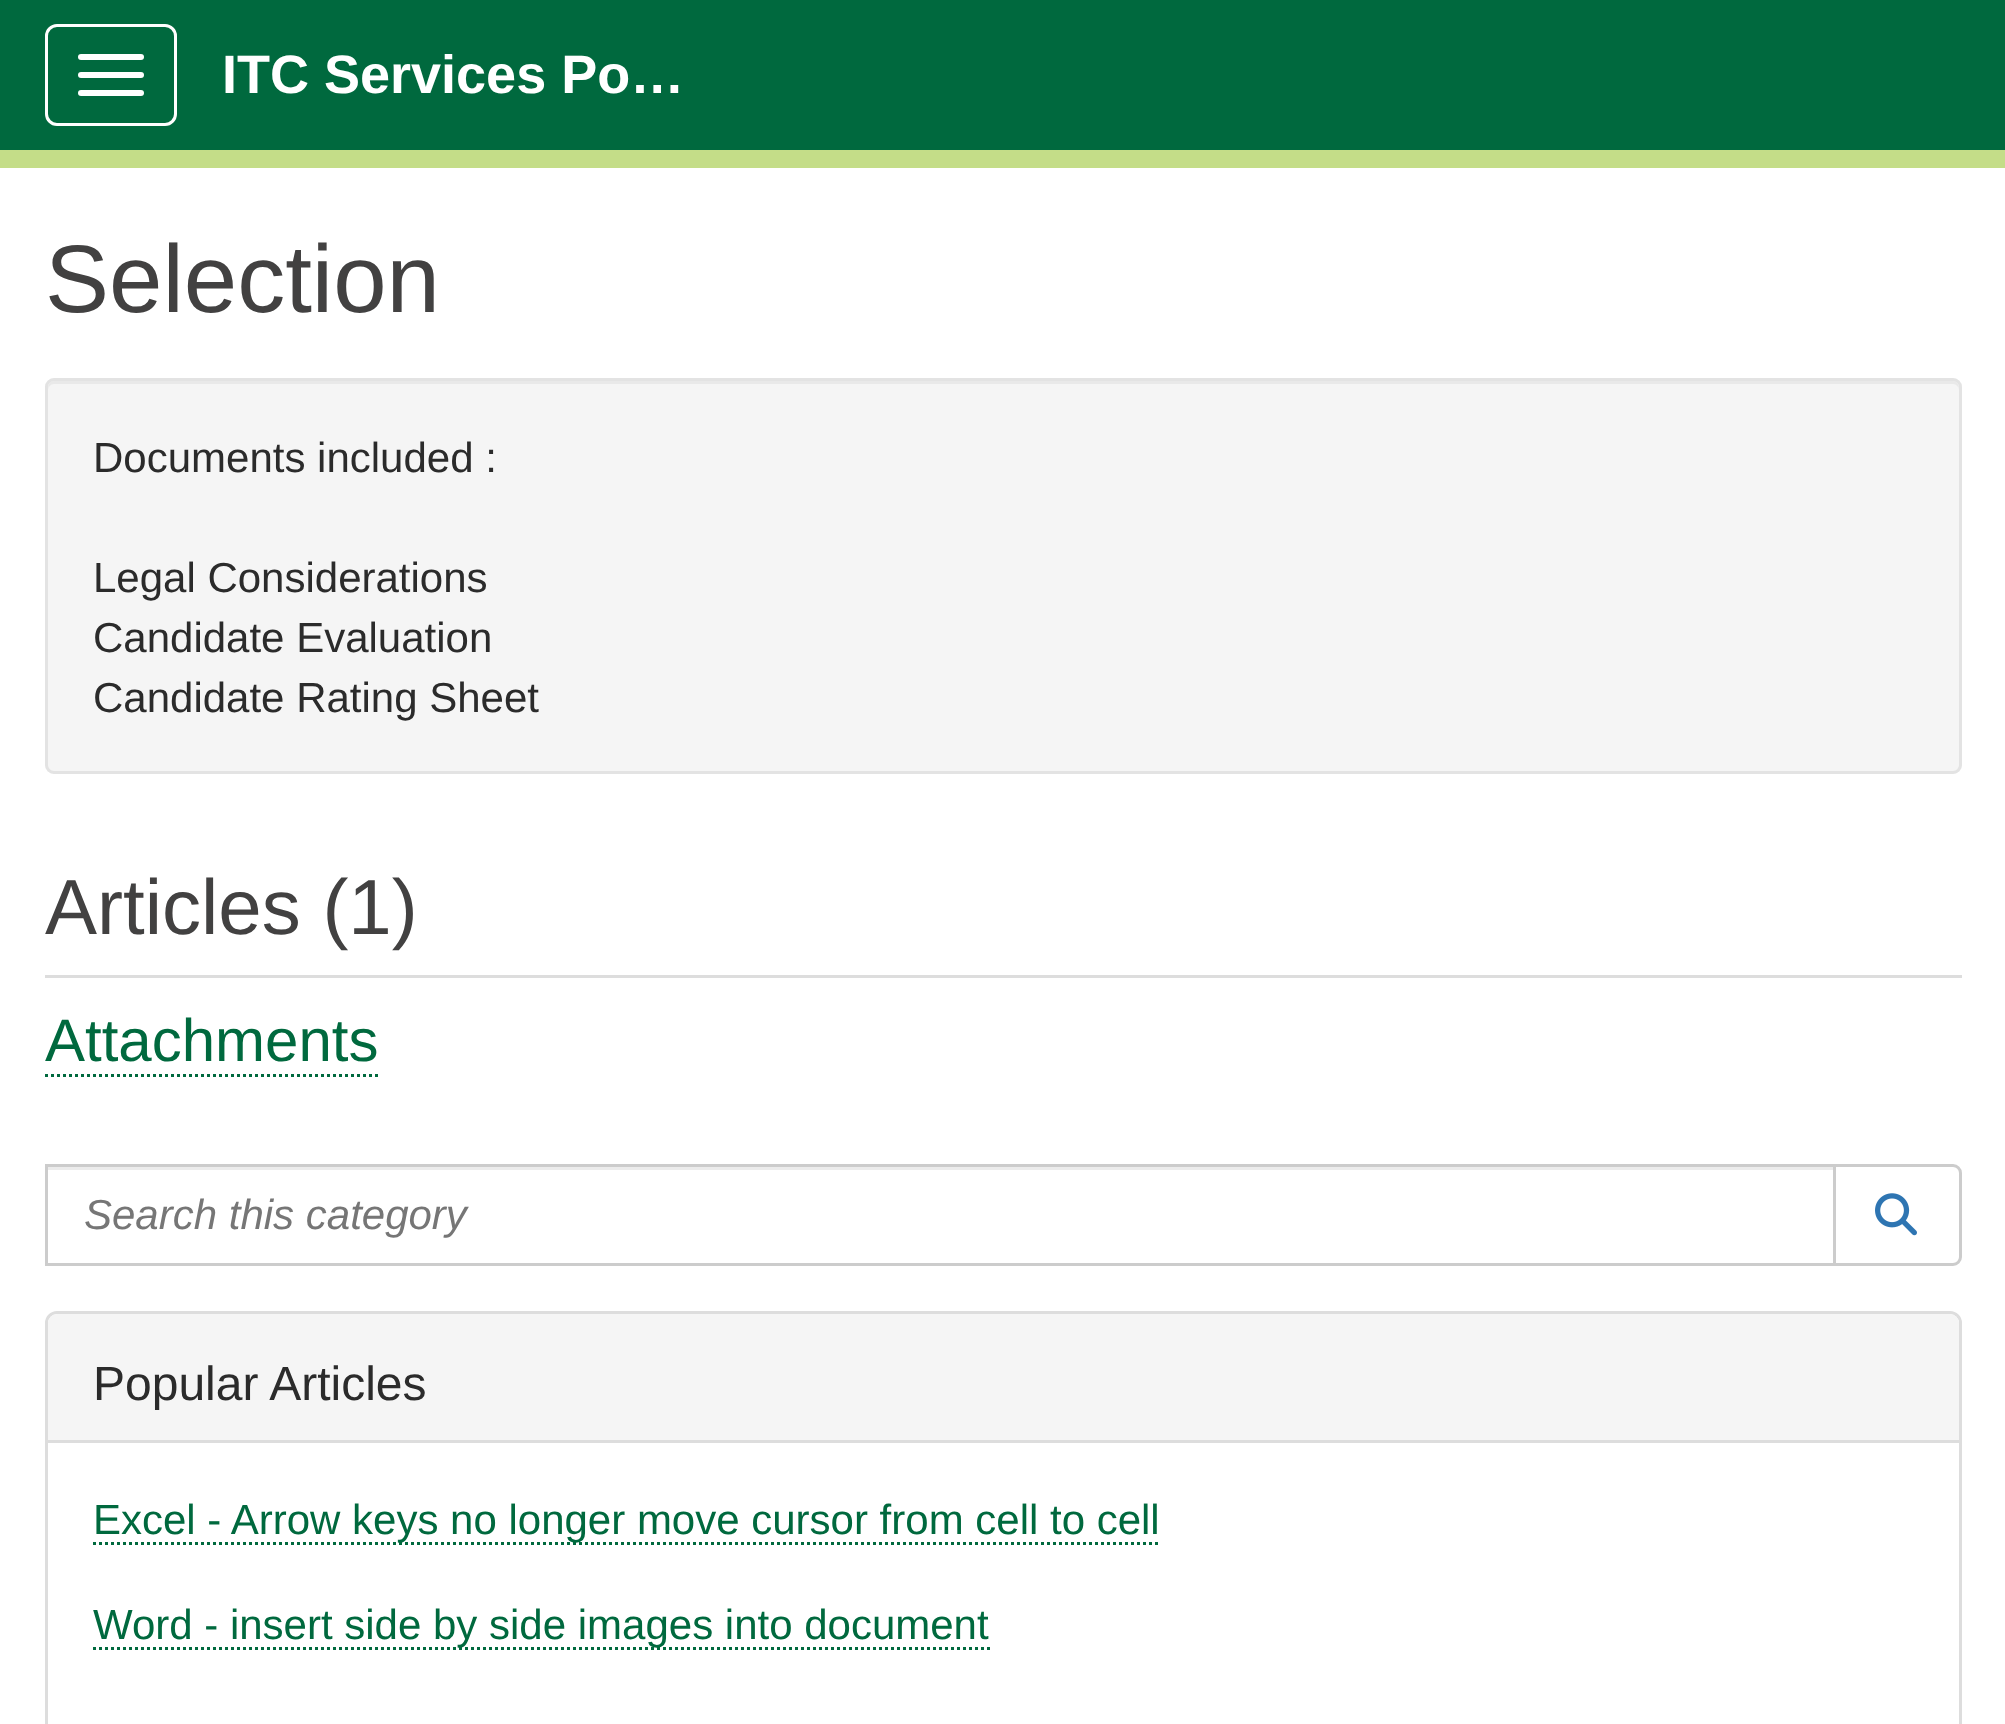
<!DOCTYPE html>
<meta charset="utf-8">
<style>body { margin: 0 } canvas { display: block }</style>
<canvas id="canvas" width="2005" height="1724"></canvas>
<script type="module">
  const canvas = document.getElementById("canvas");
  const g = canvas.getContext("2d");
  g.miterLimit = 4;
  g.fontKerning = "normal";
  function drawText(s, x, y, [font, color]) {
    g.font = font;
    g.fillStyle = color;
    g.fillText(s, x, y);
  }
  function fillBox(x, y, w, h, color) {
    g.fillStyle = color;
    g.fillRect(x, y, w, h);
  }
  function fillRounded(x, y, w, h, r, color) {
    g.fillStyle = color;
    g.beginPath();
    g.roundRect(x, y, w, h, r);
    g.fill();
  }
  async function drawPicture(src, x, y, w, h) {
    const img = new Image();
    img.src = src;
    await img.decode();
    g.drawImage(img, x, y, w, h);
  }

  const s1 = ["bold 54px Liberation Sans", "#FFFFFF"];
  const s2 = ["96px Liberation Sans", "#424141"];
  const s3 = ["42px Liberation Sans", "#2B2B2B"];
  const s4 = ["78px Liberation Sans", "#424141"];
  const s5 = ["60px Liberation Sans", "#00693E"];
  const s6 = ["italic 42px Liberation Sans", "#767676"];
  const s7 = ["48px Liberation Sans", "#2B2B2B"];
  const s8 = ["42px Liberation Sans", "#00693E"];

  fillBox(0, 0, 2005, 1724, "#FFFFFF");
  fillBox(0, 0, 2005, 150, "#00693E");
  fillBox(0, 150, 2005, 18, "#C4DD88");
  g.beginPath();
  g.roundRect(46.5, 25.5, 129, 99, 10.5);
  g.strokeStyle = "#FFFFFF";
  g.lineWidth = 3;
  g.stroke();
  fillRounded(78, 54, 66, 6, 3, "#FFFFFF");
  fillRounded(78, 72, 66, 6, 3, "#FFFFFF");
  fillRounded(78, 90, 66, 6, 3, "#FFFFFF");
  drawText("ITC Services Po…", 222, 93, s1);
  drawText("Selection", 45, 312, s2);
  fillRounded(45, 378, 1917, 396, 9, "#F5F5F5");
  g.fillStyle = "#E9E9E9";
  g.beginPath();
  g.moveTo(54, 384);
  g.lineTo(1953, 384);
  g.bezierCurveTo(1956, 384, 1959, 387, 1959, 390);
  g.bezierCurveTo(1959, 386, 1958, 381, 1953, 381);
  g.lineTo(54, 381);
  g.bezierCurveTo(49, 381, 48, 386, 48, 390);
  g.bezierCurveTo(48, 387, 51, 384, 54, 384);
  g.closePath();
  g.fill();
  g.beginPath();
  g.roundRect(46.5, 379.5, 1914, 393, 7.5);
  g.strokeStyle = "#E3E3E3";
  g.stroke();
  drawText("Documents included :", 93, 472, s3);
  drawText("Legal Considerations", 93, 592, s3);
  drawText("Candidate Evaluation", 93, 652, s3);
  drawText("Candidate Rating Sheet", 93, 712, s3);
  fillBox(45, 975, 1917, 3, "#DDDDDD");
  drawText("Articles (1)", 45, 934, s4);
  drawText("Attachments", 45, 1061, s5);
  g.beginPath();
  g.moveTo(45, 1075.5);
  g.lineTo(378, 1075.5);
  g.strokeStyle = "#00693E";
  g.setLineDash([3, 3]);
  g.stroke();
  fillBox(48, 1167, 1785, 3, "#ECECEC");
  g.strokeStyle = "#CCCCCC";
  g.setLineDash([]);
  g.strokeRect(46.5, 1165.5, 1788, 99);
  drawText("Search this category", 84, 1229, s6);
  g.fillStyle = "#FFFFFF";
  g.beginPath();
  g.roundRect(1834.5, 1165.5, 126, 99, [0, 7.5, 7.5, 0]);
  g.fill();
  g.stroke();
  await drawPicture("pic1.png", 1875, 1193, 42, 43);
  g.beginPath();
  g.roundRect(46.5, 1312.5, 1914, 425, 10.5);
  g.strokeStyle = "#DDDDDD";
  g.stroke();
  g.fillStyle = "#F5F5F5";
  g.beginPath();
  g.roundRect(48, 1314, 1911, 129, [9, 9, 0, 0]);
  g.fill();
  fillBox(48, 1440, 1911, 3, "#DDDDDD");
  drawText("Popular Articles", 93, 1400, s7);
  g.beginPath();
  g.moveTo(93, 1543.5);
  g.lineTo(1161, 1543.5);
  g.strokeStyle = "#00693E";
  g.setLineDash([3, 3]);
  g.stroke();
  drawText("Excel - Arrow keys no longer move cursor from cell to cell", 93, 1534, s8);
  g.beginPath();
  g.moveTo(93, 1648.5);
  g.lineTo(990, 1648.5);
  g.stroke();
  drawText("Word - insert side by side images into document", 93, 1639, s8);
</script>
